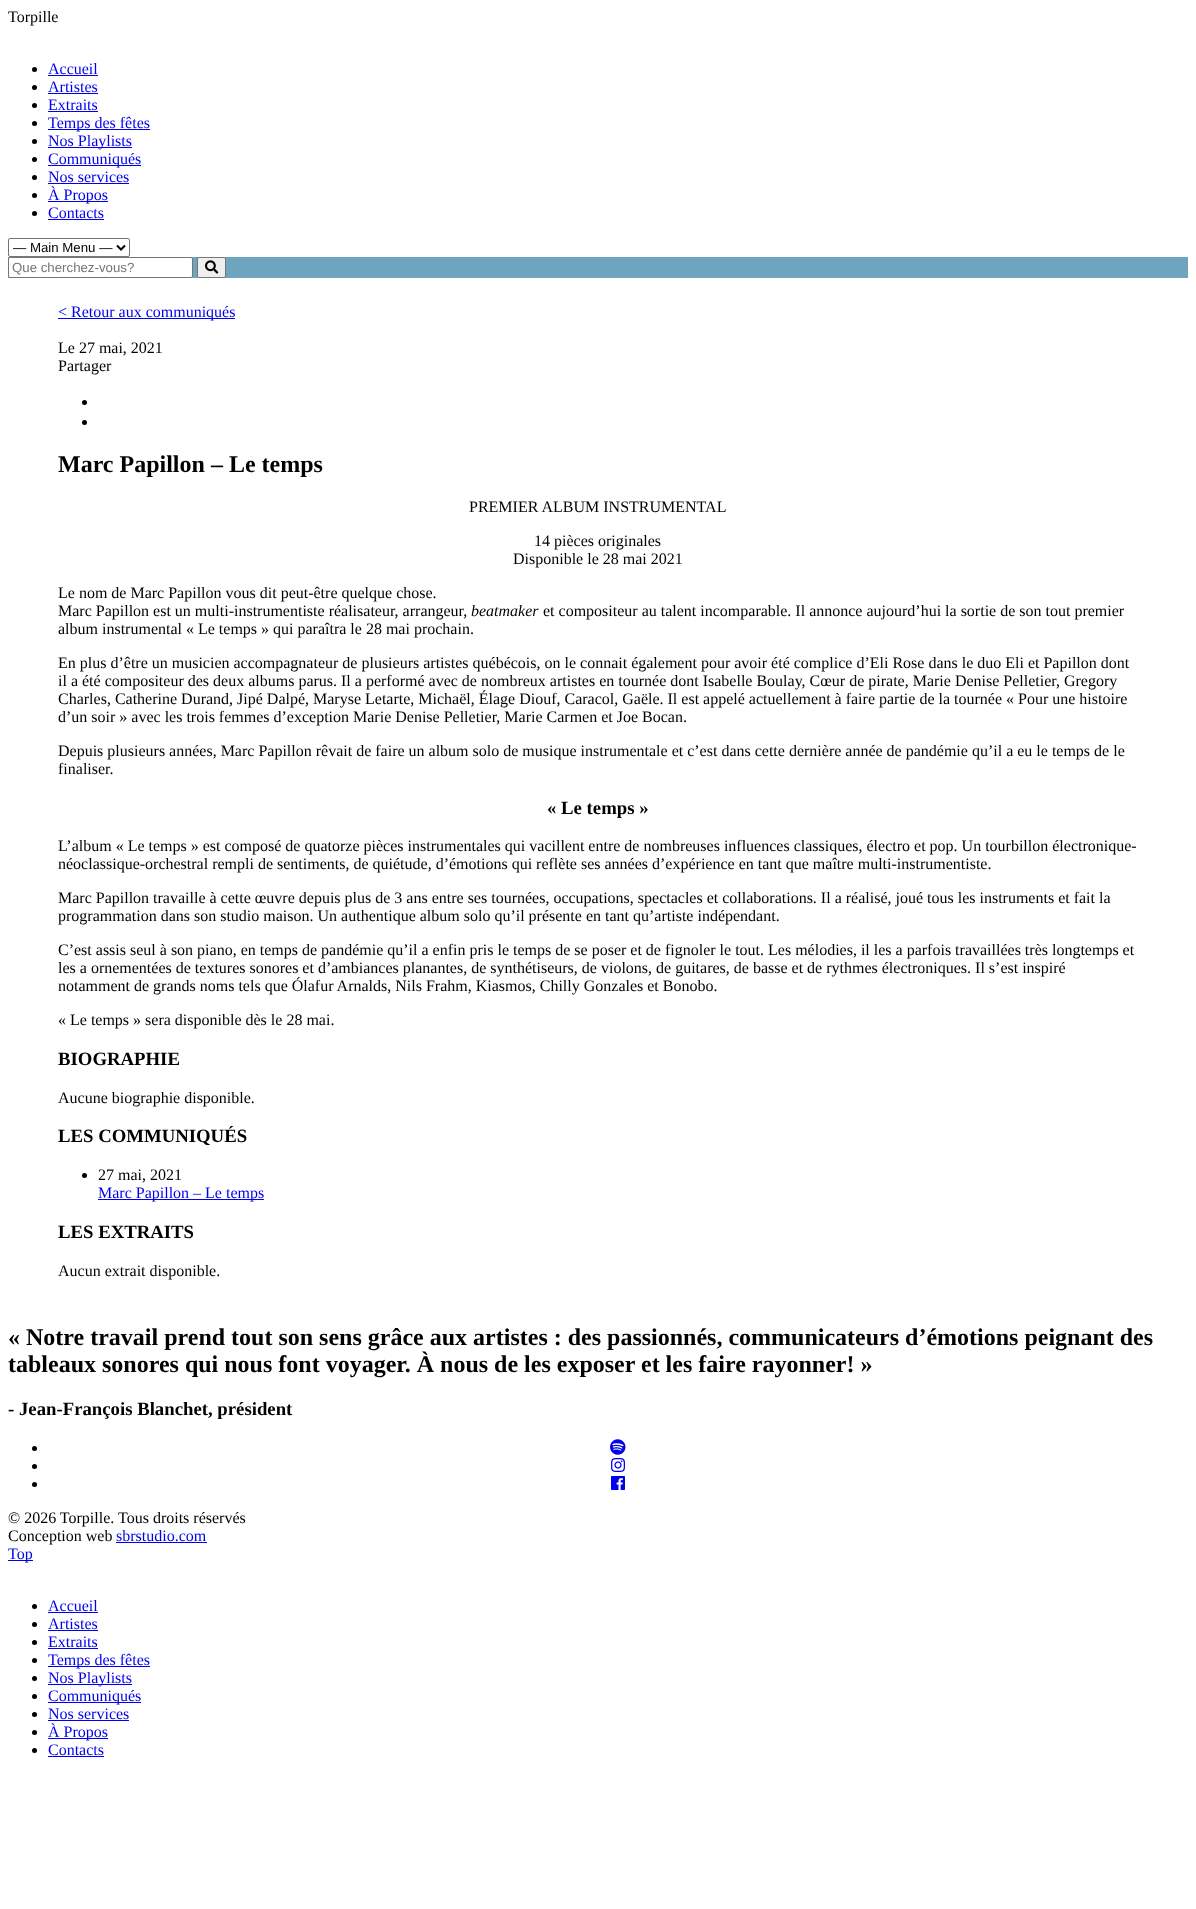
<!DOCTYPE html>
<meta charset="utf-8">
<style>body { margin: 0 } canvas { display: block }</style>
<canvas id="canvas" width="1196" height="1909"></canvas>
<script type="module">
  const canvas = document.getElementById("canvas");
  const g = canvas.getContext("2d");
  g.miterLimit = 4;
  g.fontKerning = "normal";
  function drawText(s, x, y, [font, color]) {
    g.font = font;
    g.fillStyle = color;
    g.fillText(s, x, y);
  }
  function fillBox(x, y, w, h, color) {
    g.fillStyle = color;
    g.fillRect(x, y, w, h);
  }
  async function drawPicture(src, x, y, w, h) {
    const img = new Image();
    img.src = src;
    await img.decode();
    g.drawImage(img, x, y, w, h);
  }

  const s1 = ["16px Liberation Serif", "#000000"];
  const s2 = ["16px Liberation Serif", "#0000EE"];
  const s3 = ["13.25px Liberation Sans", "#000000"];
  const s4 = ["13.25px Liberation Sans", "#757575"];
  const s5 = ["bold 24px Liberation Serif", "#000000"];
  const s6 = ["italic 16px Liberation Serif", "#000000"];
  const s7 = ["bold 18.75px Liberation Serif", "#000000"];

  fillBox(0, 0, 1196, 1909, "#FFFFFF");
  drawText("Torpille", 8, 22, s1);
  g.beginPath();
  g.arc(34.5, 69.5, 2.5, 0, Math.PI * 2);
  g.fill();
  drawText("Accueil", 48, 74, s2);
  fillBox(48, 75, 50, 1, "#0000EE");
  g.fillStyle = "#000000";
  g.beginPath();
  g.arc(34.5, 87.5, 2.5, 0, Math.PI * 2);
  g.fill();
  drawText("Artistes", 48, 92, s2);
  fillBox(48, 93, 50, 1, "#0000EE");
  g.fillStyle = "#000000";
  g.beginPath();
  g.arc(34.5, 105.5, 2.5, 0, Math.PI * 2);
  g.fill();
  drawText("Extraits", 48, 110, s2);
  fillBox(48, 111, 50, 1, "#0000EE");
  g.fillStyle = "#000000";
  g.beginPath();
  g.arc(34.5, 123.5, 2.5, 0, Math.PI * 2);
  g.fill();
  fillBox(48, 129, 102, 1, "#0000EE");
  drawText("Temps des fêtes", 48, 128, s2);
  g.fillStyle = "#000000";
  g.beginPath();
  g.arc(34.5, 141.5, 2.5, 0, Math.PI * 2);
  g.fill();
  fillBox(48, 147, 84, 1, "#0000EE");
  drawText("Nos Playlists", 48, 146, s2);
  g.fillStyle = "#000000";
  g.beginPath();
  g.arc(34.5, 159.5, 2.5, 0, Math.PI * 2);
  g.fill();
  fillBox(48, 165, 93, 1, "#0000EE");
  drawText("Communiqués", 48, 164, s2);
  g.fillStyle = "#000000";
  g.beginPath();
  g.arc(34.5, 177.5, 2.5, 0, Math.PI * 2);
  g.fill();
  drawText("Nos services", 48, 182, s2);
  fillBox(48, 183, 81, 1, "#0000EE");
  g.fillStyle = "#000000";
  g.beginPath();
  g.arc(34.5, 195.5, 2.5, 0, Math.PI * 2);
  g.fill();
  fillBox(48, 201, 60, 1, "#0000EE");
  drawText("À Propos", 48, 200, s2);
  g.fillStyle = "#000000";
  g.beginPath();
  g.arc(34.5, 213.5, 2.5, 0, Math.PI * 2);
  g.fill();
  drawText("Contacts", 48, 218, s2);
  fillBox(48, 219, 56, 1, "#0000EE");
  g.beginPath();
  g.roundRect(8.5, 238.5, 121, 18, 1.5);
  g.strokeStyle = "#767676";
  g.stroke();
  g.beginPath();
  g.moveTo(117, 245.5);
  g.lineTo(121, 249.5);
  g.lineTo(125, 245.5);
  g.strokeStyle = "#000000";
  g.lineWidth = 2;
  g.stroke();
  drawText("— Main Menu —", 13, 252, s3);
  fillBox(8, 257, 1180, 21, "#6EA4BE");
  g.fillStyle = "#FFFFFF";
  g.beginPath();
  g.roundRect(8.5, 257.5, 184, 20, 1.5);
  g.fill();
  g.strokeStyle = "#767676";
  g.lineWidth = 1;
  g.stroke();
  drawText("Que cherchez-vous?", 12, 272, s4);
  g.fillStyle = "#EFEFEF";
  g.beginPath();
  g.roundRect(197.5, 257.5, 28, 20, 1.5);
  g.fill();
  g.stroke();
  await drawPicture("pic1.png", 205, 260, 14, 14);
  fillBox(58, 318, 177, 1, "#0000EE");
  drawText("< Retour aux communiqués", 58, 317, s2);
  drawText("Le 27 mai, 2021", 58, 353, s1);
  drawText("Partager", 58, 371, s1);
  g.beginPath();
  g.arc(84.5, 402.5, 2.5, 0, Math.PI * 2);
  g.fill();
  g.beginPath();
  g.arc(84.5, 422.5, 2.5, 0, Math.PI * 2);
  g.fill();
  drawText("Marc Papillon – Le temps", 58, 472, s5);
  drawText("PREMIER ALBUM INSTRUMENTAL", 469, 512, s1);
  drawText("14 pièces originales", 534, 546, s1);
  drawText("Disponible le 28 mai 2021", 513, 564, s1);
  drawText("Le nom de Marc Papillon vous dit peut-être quelque chose.", 58, 598, s1);
  drawText("Marc Papillon est un multi-instrumentiste réalisateur, arrangeur,", 58, 616, s1);
  drawText("beatmaker", 471, 616, s6);
  drawText("et compositeur au talent incomparable. Il annonce aujourd’hui la sortie de son tout premier", 543, 616, s1);
  drawText("album instrumental « Le temps » qui paraîtra le 28 mai prochain.", 58, 634, s1);
  drawText("En plus d’être un musicien accompagnateur de plusieurs artistes québécois, on le connait également pour avoir été complice d’Eli Rose dans le duo Eli et Papillon dont", 58, 668, s1);
  drawText("il a été compositeur des deux albums parus. Il a performé avec de nombreux artistes en tournée dont Isabelle Boulay, Cœur de pirate, Marie Denise Pelletier, Gregory", 58, 686, s1);
  drawText("Charles, Catherine Durand, Jipé Dalpé, Maryse Letarte, Michaël, Élage Diouf, Caracol, Gaële. Il est appelé actuellement à faire partie de la tournée « Pour une histoire", 58, 704, s1);
  drawText("d’un soir » avec les trois femmes d’exception Marie Denise Pelletier, Marie Carmen et Joe Bocan.", 58, 722, s1);
  drawText("Depuis plusieurs années, Marc Papillon rêvait de faire un album solo de musique instrumentale et c’est dans cette dernière année de pandémie qu’il a eu le temps de le", 58, 756, s1);
  drawText("finaliser.", 58, 774, s1);
  drawText("« Le temps »", 547, 814, s7);
  drawText("L’album « Le temps » est composé de quatorze pièces instrumentales qui vacillent entre de nombreuses influences classiques, électro et pop. Un tourbillon électronique-", 58, 851, s1);
  drawText("néoclassique-orchestral rempli de sentiments, de quiétude, d’émotions qui reflète ses années d’expérience en tant que maître multi-instrumentiste.", 58, 869, s1);
  drawText("Marc Papillon travaille à cette œuvre depuis plus de 3 ans entre ses tournées, occupations, spectacles et collaborations. Il a réalisé, joué tous les instruments et fait la", 58, 903, s1);
  drawText("programmation dans son studio maison. Un authentique album solo qu’il présente en tant qu’artiste indépendant.", 58, 921, s1);
  drawText("C’est assis seul à son piano, en temps de pandémie qu’il a enfin pris le temps de se poser et de fignoler le tout. Les mélodies, il les a parfois travaillées très longtemps et", 58, 955, s1);
  drawText("les a ornementées de textures sonores et d’ambiances planantes, de synthétiseurs, de violons, de guitares, de basse et de rythmes électroniques. Il s’est inspiré", 58, 973, s1);
  drawText("notamment de grands noms tels que Ólafur Arnalds, Nils Frahm, Kiasmos, Chilly Gonzales et Bonobo.", 58, 991, s1);
  drawText("« Le temps » sera disponible dès le 28 mai.", 58, 1025, s1);
  drawText("BIOGRAPHIE", 58, 1065, s7);
  drawText("Aucune biographie disponible.", 58, 1103, s1);
  drawText("LES COMMUNIQUÉS", 58, 1142, s7);
  g.beginPath();
  g.arc(84.5, 1175.5, 2.5, 0, Math.PI * 2);
  g.fill();
  drawText("27 mai, 2021", 98, 1180, s1);
  fillBox(98, 1199, 166, 1, "#0000EE");
  drawText("Marc Papillon – Le temps", 98, 1198, s2);
  drawText("LES EXTRAITS", 58, 1238, s7);
  drawText("Aucun extrait disponible.", 58, 1276, s1);
  drawText("« Notre travail prend tout son sens grâce aux artistes : des passionnés, communicateurs d’émotions peignant des", 8, 1345, s5);
  drawText("tableaux sonores qui nous font voyager. À nous de les exposer et les faire rayonner! »", 8, 1372, s5);
  drawText("- Jean-François Blanchet, président", 8, 1415, s7);
  g.beginPath();
  g.arc(34.5, 1448.5, 2.5, 0, Math.PI * 2);
  g.fill();
  await drawPicture("pic2.png", 610, 1439, 16, 16);
  g.beginPath();
  g.arc(34.5, 1466.5, 2.5, 0, Math.PI * 2);
  g.fill();
  await drawPicture("pic3.png", 611, 1458, 14, 14);
  g.beginPath();
  g.arc(34.5, 1484.5, 2.5, 0, Math.PI * 2);
  g.fill();
  await drawPicture("pic4.png", 611, 1476, 14, 14);
  drawText("© 2026 Torpille. Tous droits réservés", 8, 1523, s1);
  drawText("Conception web", 8, 1541, s1);
  drawText("sbrstudio.com", 116, 1541, s2);
  fillBox(116, 1542, 91, 1, "#0000EE");
  fillBox(8, 1560, 25, 1, "#0000EE");
  drawText("Top", 8, 1559, s2);
  g.fillStyle = "#000000";
  g.beginPath();
  g.arc(34.5, 1606.5, 2.5, 0, Math.PI * 2);
  g.fill();
  drawText("Accueil", 48, 1611, s2);
  fillBox(48, 1612, 50, 1, "#0000EE");
  g.fillStyle = "#000000";
  g.beginPath();
  g.arc(34.5, 1624.5, 2.5, 0, Math.PI * 2);
  g.fill();
  drawText("Artistes", 48, 1629, s2);
  fillBox(48, 1630, 50, 1, "#0000EE");
  g.fillStyle = "#000000";
  g.beginPath();
  g.arc(34.5, 1642.5, 2.5, 0, Math.PI * 2);
  g.fill();
  drawText("Extraits", 48, 1647, s2);
  fillBox(48, 1648, 50, 1, "#0000EE");
  g.fillStyle = "#000000";
  g.beginPath();
  g.arc(34.5, 1660.5, 2.5, 0, Math.PI * 2);
  g.fill();
  fillBox(48, 1666, 102, 1, "#0000EE");
  drawText("Temps des fêtes", 48, 1665, s2);
  g.fillStyle = "#000000";
  g.beginPath();
  g.arc(34.5, 1678.5, 2.5, 0, Math.PI * 2);
  g.fill();
  fillBox(48, 1684, 84, 1, "#0000EE");
  drawText("Nos Playlists", 48, 1683, s2);
  g.fillStyle = "#000000";
  g.beginPath();
  g.arc(34.5, 1696.5, 2.5, 0, Math.PI * 2);
  g.fill();
  fillBox(48, 1702, 93, 1, "#0000EE");
  drawText("Communiqués", 48, 1701, s2);
  g.fillStyle = "#000000";
  g.beginPath();
  g.arc(34.5, 1714.5, 2.5, 0, Math.PI * 2);
  g.fill();
  drawText("Nos services", 48, 1719, s2);
  fillBox(48, 1720, 81, 1, "#0000EE");
  g.fillStyle = "#000000";
  g.beginPath();
  g.arc(34.5, 1732.5, 2.5, 0, Math.PI * 2);
  g.fill();
  fillBox(48, 1738, 60, 1, "#0000EE");
  drawText("À Propos", 48, 1737, s2);
  g.fillStyle = "#000000";
  g.beginPath();
  g.arc(34.5, 1750.5, 2.5, 0, Math.PI * 2);
  g.fill();
  drawText("Contacts", 48, 1755, s2);
  fillBox(48, 1756, 56, 1, "#0000EE");
</script>
